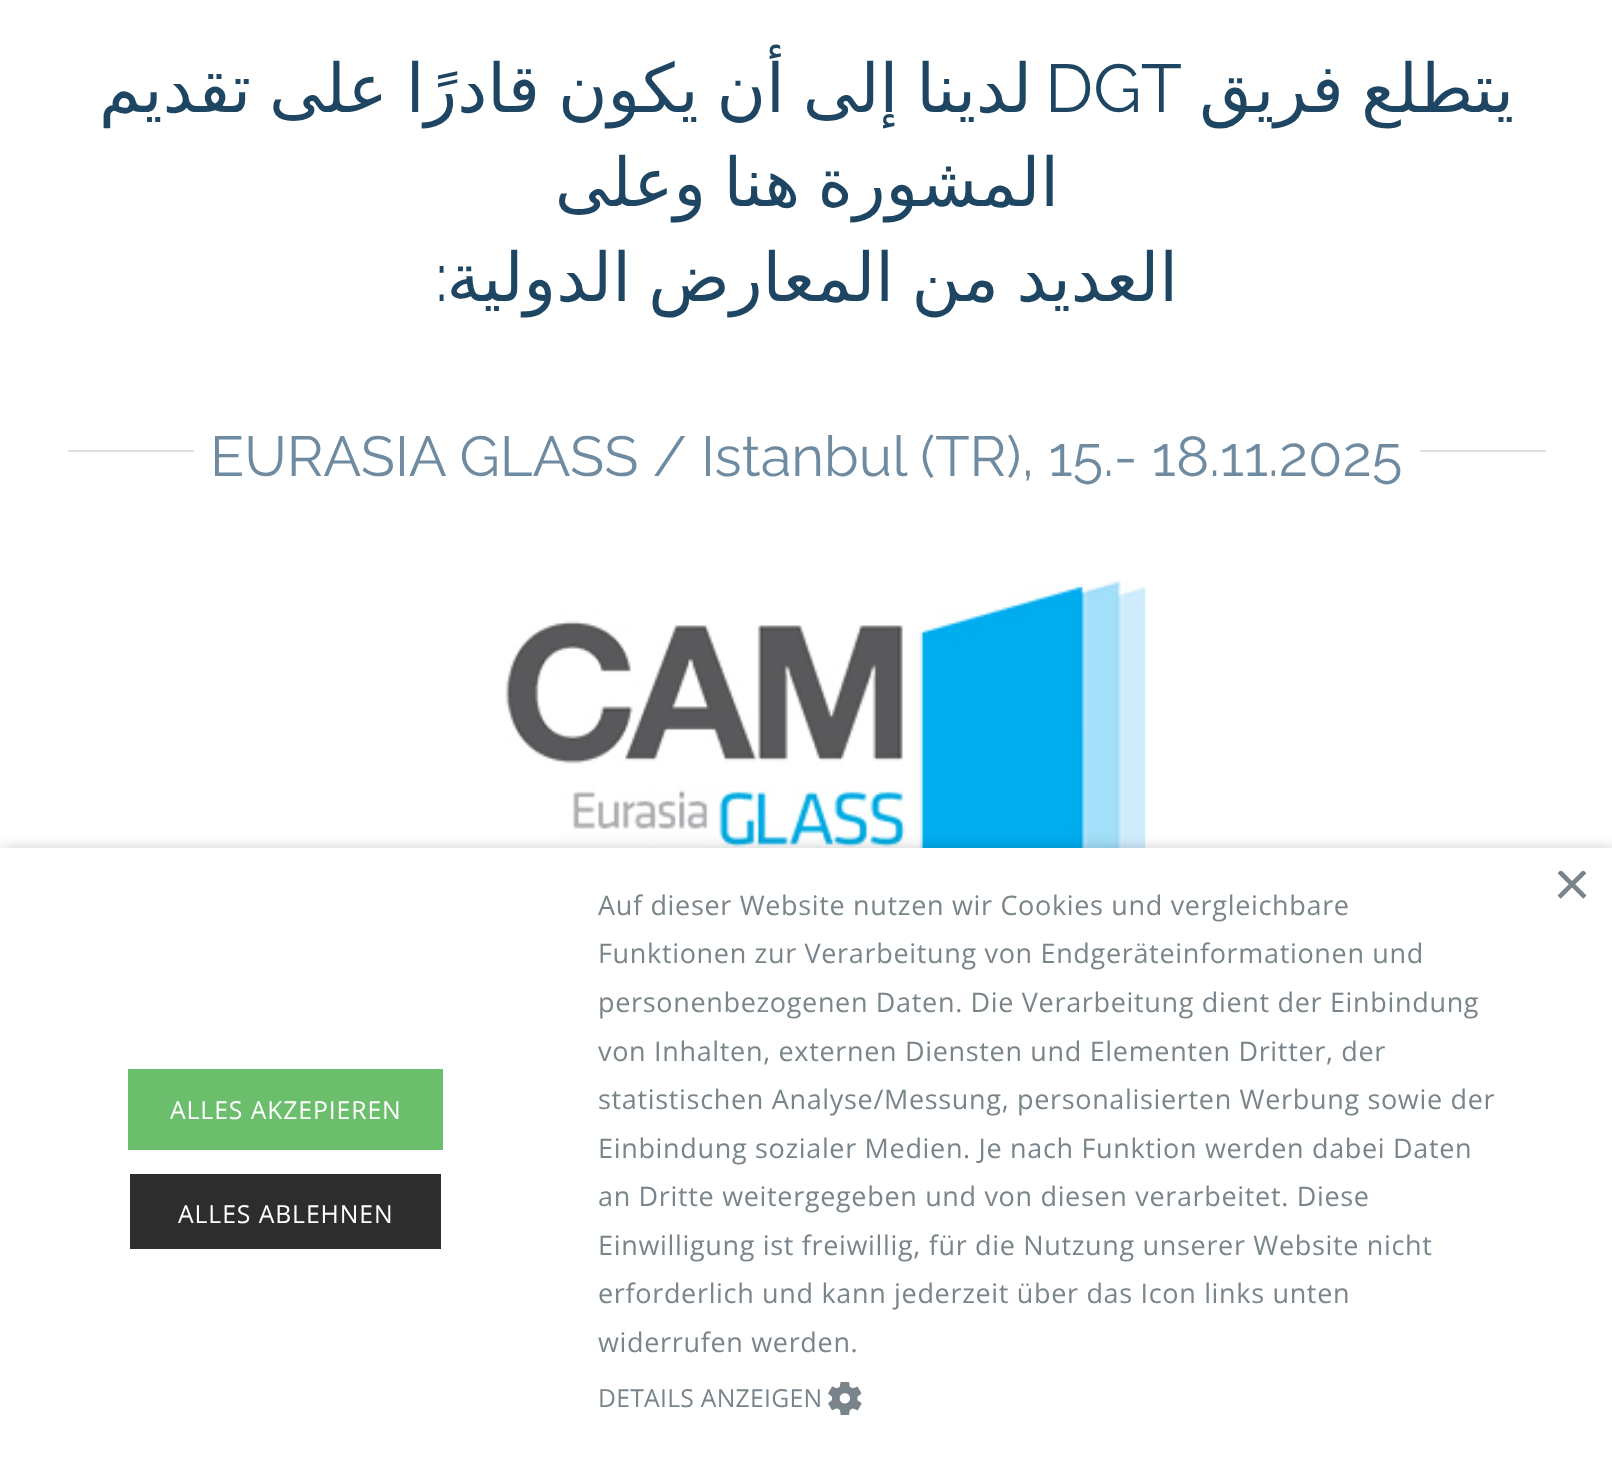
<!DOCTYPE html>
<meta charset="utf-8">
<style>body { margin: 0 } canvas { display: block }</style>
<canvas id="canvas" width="1612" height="1473"></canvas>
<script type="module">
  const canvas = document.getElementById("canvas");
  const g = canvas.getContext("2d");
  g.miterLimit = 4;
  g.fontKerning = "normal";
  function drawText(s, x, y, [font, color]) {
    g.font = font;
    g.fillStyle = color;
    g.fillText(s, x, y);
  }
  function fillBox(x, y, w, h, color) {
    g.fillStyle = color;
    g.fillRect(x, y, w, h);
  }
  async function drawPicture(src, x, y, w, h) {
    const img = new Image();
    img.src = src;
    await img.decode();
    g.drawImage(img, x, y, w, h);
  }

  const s1 = ["67.5px DejaVu Sans", "#1E4663"];
  const s2 = ["67.5px Raleway", "#1E4663"];
  const s3 = ["56.25px Raleway", "#6F8BA1"];
  const s4 = ["65px Liberation Sans", "#79858A"];
  const s5 = ["24.75px Open Sans", "#FFFFFF"];
  const s6 = ["27px Open Sans", "#79858A"];
  const s7 = ["24.75px Open Sans", "#79858A"];

  fillBox(0, 0, 1612, 1473, "#FFFFFF");
  g.wordSpacing = "-3.5px";
  g.direction = "rtl";
  drawText("لدينا إلى أن يكون قادرًا على تقديم", 1032, 112, s1);
  g.wordSpacing = "0px";
  g.direction = "ltr";
  drawText("DGT", 1045, 112, s2);
  g.wordSpacing = "-4px";
  g.direction = "rtl";
  drawText("يتطلع فريق", 1514, 112, s1);
  drawText("المشورة هنا وعلى", 1059, 206, s1);
  g.wordSpacing = "0px";
  drawText(":", 448, 301, s2);
  g.wordSpacing = "-4px";
  drawText("العديد من المعارض الدولية", 1178, 301, s1);
  fillBox(68, 450, 126, 2, "#E0DEDE");
  g.wordSpacing = "0px";
  g.direction = "ltr";
  drawText("EURASIA GLASS / Istanbul (TR), 15.- 18.11.2025", 210, 476, s3);
  fillBox(1420, 450, 126, 2, "#E0DEDE");
  await drawPicture("pic1.png", 478, 580, 668, 268);
  g.fillStyle = "rgba(0, 0, 0, 0.35)";
  g.filter = "blur(9px)";
  g.beginPath();
  g.rect(2, 853, 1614, 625);
  g.fill();
  g.filter = "none";
  fillBox(0, 848, 1612, 625, "#FFFFFF");
  g.save();
  g.beginPath();
  g.rect(1557, 871, 34, 34);
  g.clip();
  drawText("×", 1553, 906, s4);
  g.restore();
  fillBox(128, 1069, 315, 81, "#6BBE6B");
  g.letterSpacing = "0.9px";
  drawText("ALLES AKZEPIEREN", 170, 1119, s5);
  fillBox(130, 1174, 311, 75, "#2D2D2D");
  drawText("ALLES ABLEHNEN", 178, 1223, s5);
  g.letterSpacing = "0.67px";
  drawText("Auf dieser Website nutzen wir Cookies und vergleichbare", 598, 915, s6);
  drawText("Funktionen zur Verarbeitung von Endgeräteinformationen und", 598, 963, s6);
  drawText("personenbezogenen Daten. Die Verarbeitung dient der Einbindung", 598, 1012, s6);
  drawText("von Inhalten, externen Diensten und Elementen Dritter, der", 598, 1061, s6);
  drawText("statistischen Analyse/Messung, personalisierten Werbung sowie der", 598, 1109, s6);
  drawText("Einbindung sozialer Medien. Je nach Funktion werden dabei Daten", 598, 1158, s6);
  drawText("an Dritte weitergegeben und von diesen verarbeitet. Diese", 598, 1206, s6);
  drawText("Einwilligung ist freiwillig, für die Nutzung unserer Website nicht", 598, 1255, s6);
  drawText("erforderlich und kann jederzeit über das Icon links unten", 598, 1303, s6);
  drawText("widerrufen werden.", 598, 1352, s6);
  g.letterSpacing = "0.25px";
  drawText("DETAILS ANZEIGEN", 598, 1407, s7);
  await drawPicture("pic2.png", 828, 1382, 34, 33);
</script>
